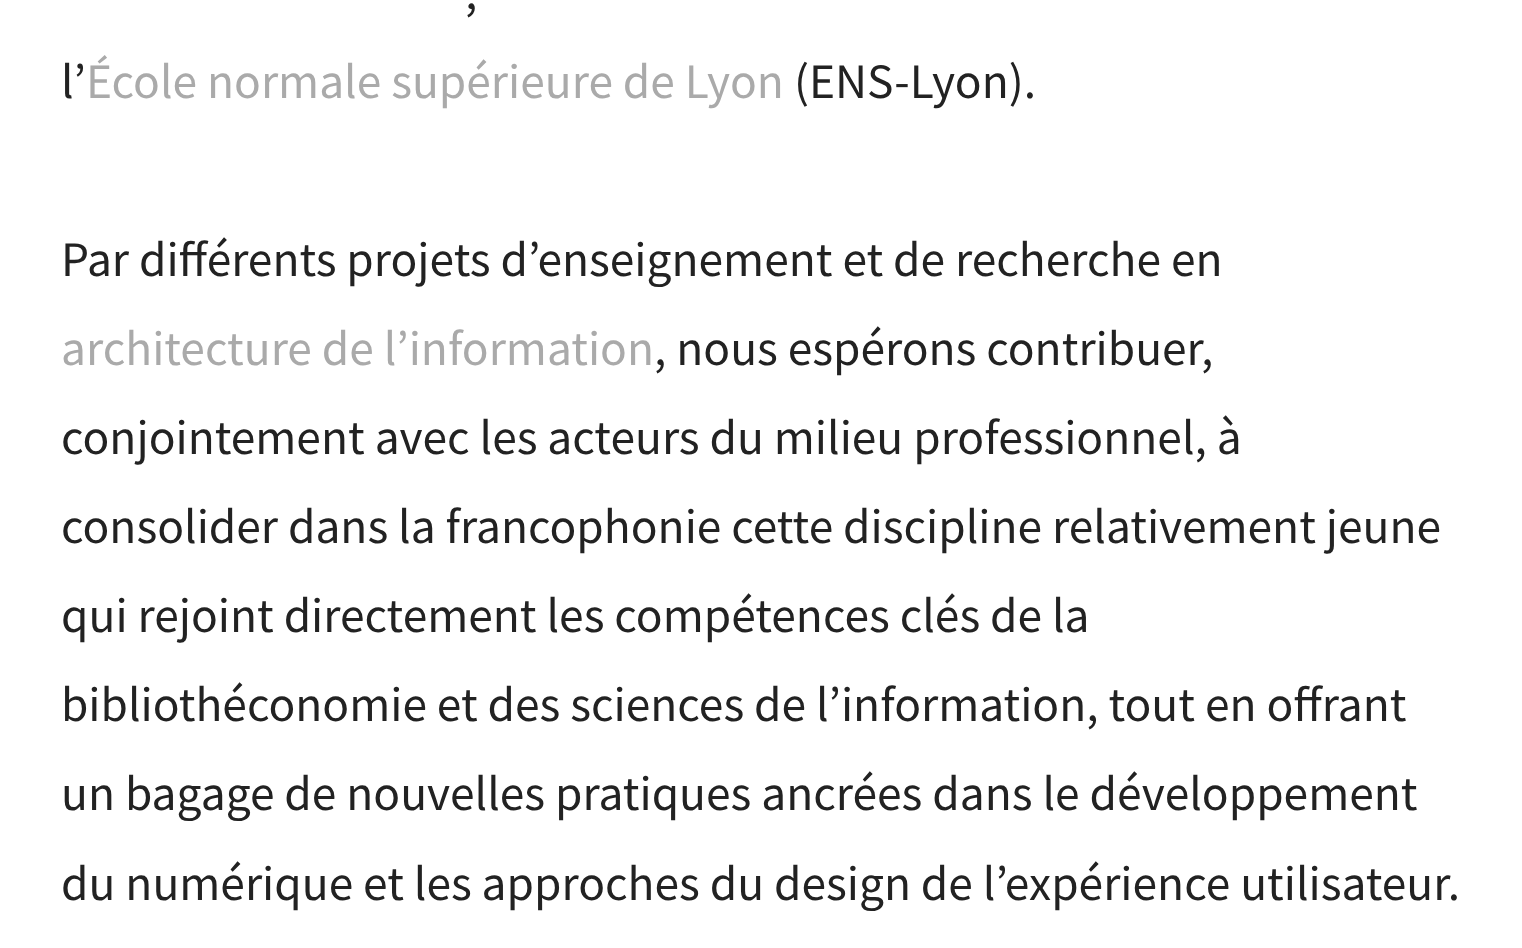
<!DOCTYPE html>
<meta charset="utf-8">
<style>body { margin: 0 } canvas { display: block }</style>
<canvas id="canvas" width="1522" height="948"></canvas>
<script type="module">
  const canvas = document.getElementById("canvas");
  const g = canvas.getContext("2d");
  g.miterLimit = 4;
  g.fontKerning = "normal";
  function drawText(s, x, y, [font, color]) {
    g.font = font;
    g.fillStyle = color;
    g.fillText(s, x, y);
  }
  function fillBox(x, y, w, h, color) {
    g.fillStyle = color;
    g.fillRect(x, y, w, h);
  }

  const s1 = ["49.5px Source Sans Pro", "#222222"];
  const s2 = ["49.5px Source Sans Pro", "#AAAAAA"];

  fillBox(0, 0, 1522, 948, "#FFFFFF");
  drawText(",", 465, 9, s1);
  drawText("l’", 61, 98, s1);
  drawText("École normale supérieure de Lyon", 86, 98, s2);
  drawText("(ENS-Lyon).", 794, 98, s1);
  drawText("Par différents projets d’enseignement et de recherche en", 61, 276, s1);
  drawText("architecture de l’information", 61, 365, s2);
  drawText(", nous espérons contribuer,", 654, 365, s1);
  drawText("conjointement avec les acteurs du milieu professionnel, à", 61, 454, s1);
  drawText("consolider dans la francophonie cette discipline relativement jeune", 61, 543, s1);
  drawText("qui rejoint directement les compétences clés de la", 61, 632, s1);
  drawText("bibliothéconomie et des sciences de l’information, tout en offrant", 61, 721, s1);
  drawText("un bagage de nouvelles pratiques ancrées dans le développement", 61, 810, s1);
  drawText("du numérique et les approches du design de l’expérience utilisateur.", 61, 900, s1);
</script>
